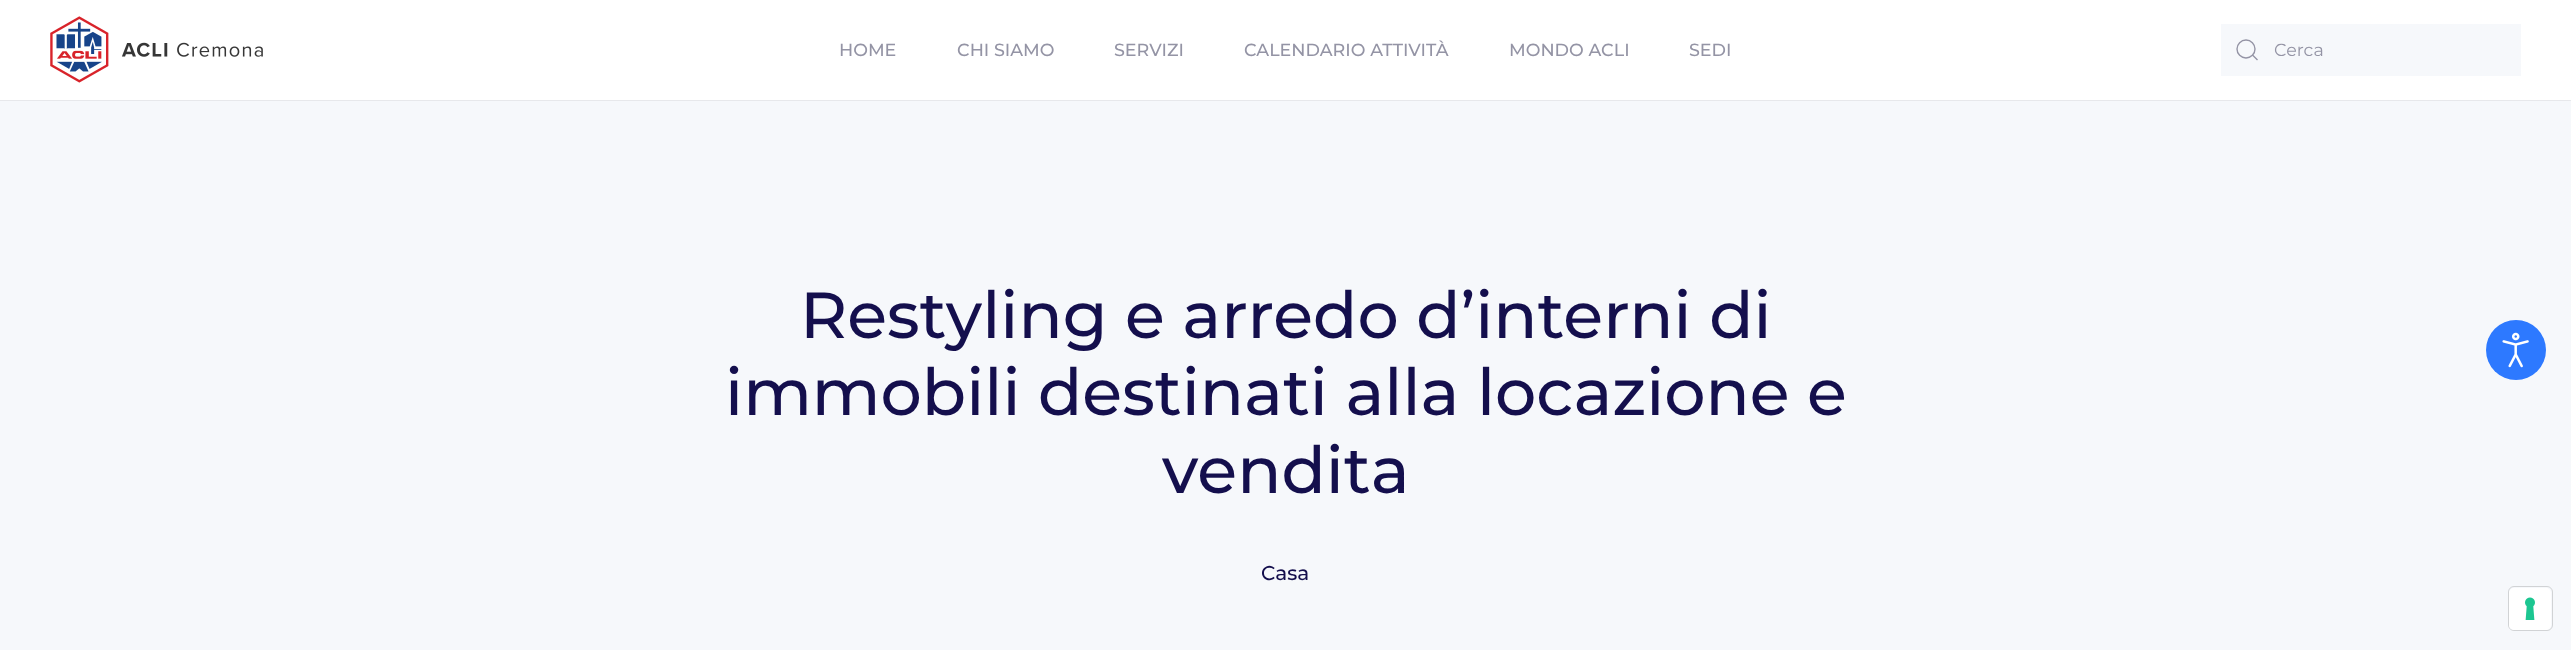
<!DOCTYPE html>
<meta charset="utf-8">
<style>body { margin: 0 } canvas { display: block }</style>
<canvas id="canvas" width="2571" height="650"></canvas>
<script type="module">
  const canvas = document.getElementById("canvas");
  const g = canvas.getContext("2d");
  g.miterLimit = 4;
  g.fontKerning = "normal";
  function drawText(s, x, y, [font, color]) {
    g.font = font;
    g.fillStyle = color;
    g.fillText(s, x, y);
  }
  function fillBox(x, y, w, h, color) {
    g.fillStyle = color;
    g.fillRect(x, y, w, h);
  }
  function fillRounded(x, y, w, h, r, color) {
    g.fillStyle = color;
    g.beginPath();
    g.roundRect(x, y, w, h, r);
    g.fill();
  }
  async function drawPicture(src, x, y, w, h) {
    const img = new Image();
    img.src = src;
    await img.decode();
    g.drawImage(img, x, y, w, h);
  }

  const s1 = ["100 17.5px Montserrat", "#9494A5"];
  const s2 = ["100 17.5px 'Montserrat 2'", "#9494A5"];
  const s3 = ["100 65px Montserrat", "#140F4D"];
  const s4 = ["100 20px Montserrat", "#140F4D"];

  fillBox(0, 0, 2571, 650, "#FFFFFF");
  fillBox(0, 100, 2571, 1, "#E7E8EB");
  await drawPicture("pic1.png", 50, 16, 213, 67);
  drawText("HOME", 839, 56, s1);
  drawText("CHI SIAMO", 957, 56, s1);
  drawText("SERVIZI", 1114, 56, s1);
  drawText("CALENDARIO ATTIVITÀ", 1244, 56, s1);
  drawText("MONDO ACLI", 1509, 56, s1);
  drawText("SEDI", 1689, 56, s1);
  fillBox(2221, 24, 300, 52, "#F6F8FB");
  g.beginPath();
  g.arc(2246, 49, 9, 0, Math.PI * 2);
  g.strokeStyle = "#9494A5";
  g.lineWidth = 1.4;
  g.stroke();
  g.beginPath();
  g.moveTo(2252.5, 55);
  g.lineTo(2257.5, 60);
  g.closePath();
  g.stroke();
  drawText("Cerca", 2274, 56, s2);
  fillBox(0, 101, 2571, 549, "#F6F8FB");
  drawText("Restyling e arredo d’interni di", 800, 338, s3);
  drawText("immobili destinati alla locazione e", 725, 415, s3);
  drawText("vendita", 1162, 493, s3);
  drawText("Casa", 1261, 580, s4);
  g.fillStyle = "#2D79FF";
  g.beginPath();
  g.arc(2516, 350, 30, 0, Math.PI * 2);
  g.fill();
  await drawPicture("pic2.png", 2502, 332, 27, 36);
  g.beginPath();
  g.roundRect(2508.5, 586.5, 44, 44, 5.5);
  g.strokeStyle = "#D1D3D5";
  g.lineWidth = 1;
  g.stroke();
  fillRounded(2509, 588, 42, 42, 5, "#FFFFFF");
  await drawPicture("pic3.png", 2525, 597, 10, 23);
</script>
